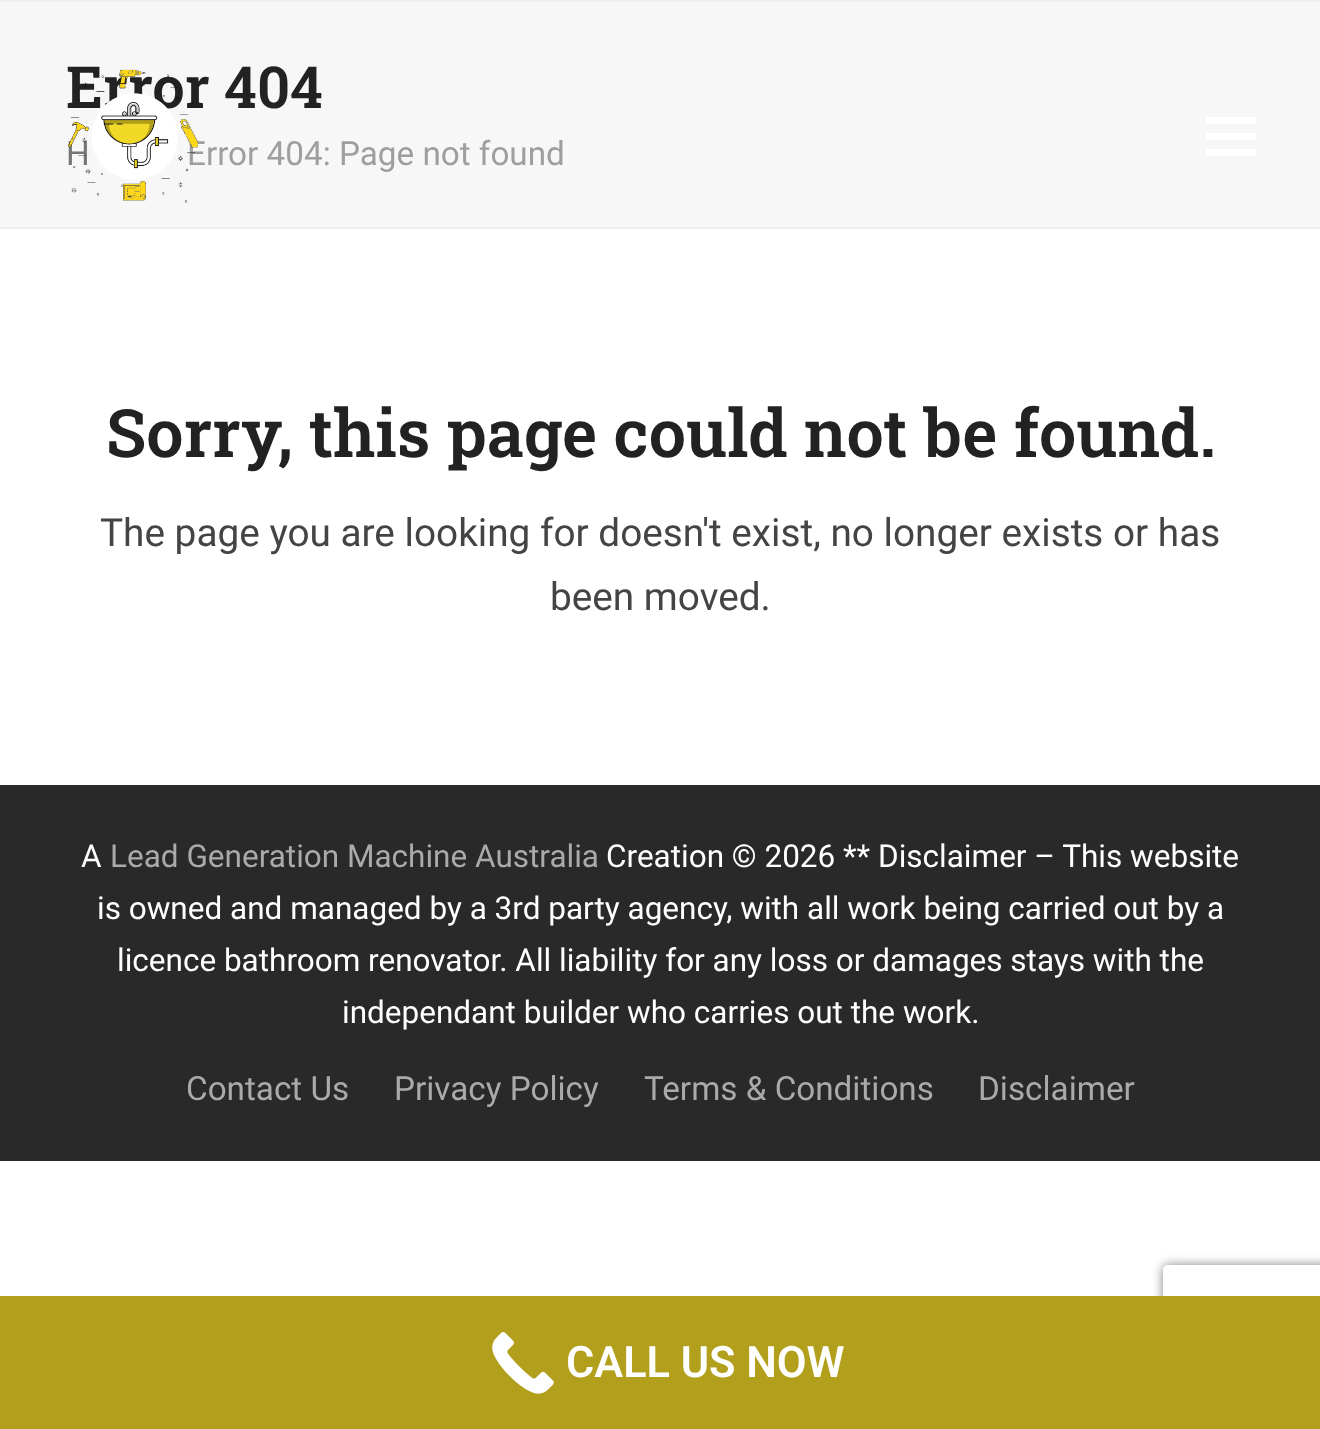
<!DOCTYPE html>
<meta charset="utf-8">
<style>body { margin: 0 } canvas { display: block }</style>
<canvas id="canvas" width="1320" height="1429"></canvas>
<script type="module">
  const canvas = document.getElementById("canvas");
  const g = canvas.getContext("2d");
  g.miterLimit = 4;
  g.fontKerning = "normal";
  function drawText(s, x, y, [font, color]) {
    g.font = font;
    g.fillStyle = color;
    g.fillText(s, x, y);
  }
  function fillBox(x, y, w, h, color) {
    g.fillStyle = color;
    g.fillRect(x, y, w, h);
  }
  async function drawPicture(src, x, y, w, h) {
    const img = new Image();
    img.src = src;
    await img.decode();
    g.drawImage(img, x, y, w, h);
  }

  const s1 = ["600 58px Roboto Slab", "#222222"];
  const s2 = ["33.25px Roboto", "#757575"];
  const s3 = ["33.25px Roboto", "#9E9E9E"];
  const s4 = ["600 66.5px Roboto Slab", "#222222"];
  const s5 = ["38.75px Roboto", "#444444"];
  const s6 = ["31.5px Roboto", "#FFFFFF"];
  const s7 = ["31.5px Roboto", "#AAAAAA"];
  const s8 = ["33.25px Roboto", "#AAAAAA"];
  const s9 = ["600 43.25px Roboto", "#FFFFFF"];

  fillBox(0, 0, 1320, 1429, "#FFFFFF");
  fillBox(0, 2, 1320, 225, "#F7F7F7");
  fillBox(0, 0, 1320, 2, "#EEEEEE");
  fillBox(0, 227, 1320, 2, "#EEEEEE");
  drawText("Error 404", 66, 108, s1);
  drawText("H", 66, 165, s2);
  drawText("Error 404: Page not found", 187, 165, s3);
  drawText("Sorry, this page could not be found.", 106, 457, s4);
  drawText("The page you are looking for doesn't exist, no longer exists or has", 100, 546, s5);
  drawText("been moved.", 550, 610, s5);
  await drawPicture("pic1.png", 68, 67, 130, 136);
  fillBox(1206, 133, 50, 7, "#FFFFFF");
  fillBox(1206, 117, 50, 7, "#FFFFFF");
  fillBox(1206, 149, 50, 7, "#FFFFFF");
  fillBox(0, 785, 1320, 376, "#292929");
  drawText("A", 81, 867, s6);
  drawText("Lead Generation Machine Australia", 110, 867, s7);
  drawText("Creation © 2026 ** Disclaimer – This website", 606, 867, s6);
  drawText("is owned and managed by a 3rd party agency, with all work being carried out by a", 97, 919, s6);
  drawText("licence bathroom renovator. All liability for any loss or damages stays with the", 117, 971, s6);
  drawText("independant builder who carries out the work.", 342, 1023, s6);
  drawText("Contact Us", 186, 1100, s8);
  drawText("Privacy Policy", 394, 1100, s8);
  drawText("Terms & Conditions", 644, 1100, s8);
  drawText("Disclaimer", 978, 1100, s8);
  g.save();
  g.beginPath();
  g.moveTo(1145, 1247);
  g.lineTo(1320, 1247);
  g.lineTo(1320, 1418);
  g.lineTo(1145, 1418);
  g.closePath();
  g.moveTo(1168, 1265);
  g.lineTo(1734, 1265);
  g.bezierCurveTo(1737, 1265, 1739, 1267, 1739, 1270);
  g.lineTo(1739, 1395);
  g.bezierCurveTo(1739, 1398, 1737, 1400, 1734, 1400);
  g.lineTo(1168, 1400);
  g.bezierCurveTo(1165, 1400, 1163, 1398, 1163, 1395);
  g.lineTo(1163, 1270);
  g.bezierCurveTo(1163, 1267, 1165, 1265, 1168, 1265);
  g.closePath();
  g.clip("evenodd");
  g.fillStyle = "#808080";
  g.filter = "blur(5.5px)";
  g.beginPath();
  g.roundRect(1163, 1265, 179, 135, 5);
  g.fill();
  g.filter = "none";
  g.restore();
  fillBox(0, 1296, 1320, 133, "#B2A01D");
  await drawPicture("pic2.png", 492, 1332, 62, 62);
  drawText("CALL US NOW", 566, 1377, s9);
</script>
